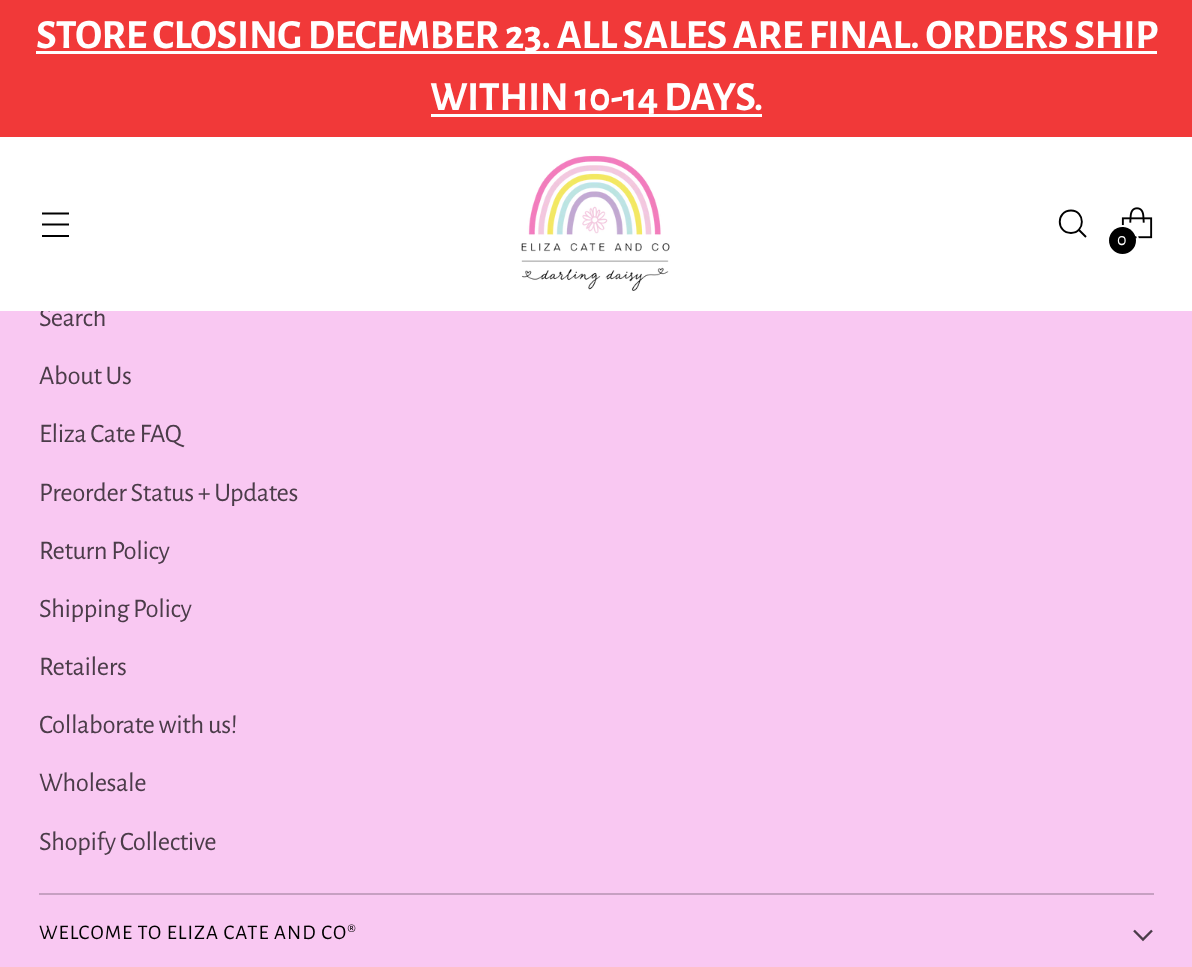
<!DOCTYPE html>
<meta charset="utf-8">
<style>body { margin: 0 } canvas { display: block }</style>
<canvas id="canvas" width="1192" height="967"></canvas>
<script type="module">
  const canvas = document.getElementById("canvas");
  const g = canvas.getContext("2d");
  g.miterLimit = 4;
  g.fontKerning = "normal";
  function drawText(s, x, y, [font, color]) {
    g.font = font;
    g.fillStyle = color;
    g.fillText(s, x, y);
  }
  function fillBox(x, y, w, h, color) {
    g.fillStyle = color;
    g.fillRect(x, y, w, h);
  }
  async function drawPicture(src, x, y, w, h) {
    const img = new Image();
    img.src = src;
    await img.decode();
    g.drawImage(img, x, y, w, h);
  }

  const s1 = ["bold 41.6px Alegreya Sans", "#FFFFFF"];
  const s2 = ["26.75px Alegreya Sans", "#4B3C49"];
  const s3 = ["18px Alegreya Sans", "#FFFFFF"];
  const s4 = ["20.75px Alegreya Sans", "#000000"];

  fillBox(0, 0, 1192, 967, "#F9C8F2");
  fillBox(0, 0, 1192, 137, "#F13939");
  fillBox(36, 51, 1121, 3, "#FFFFFF");
  g.letterSpacing = "-0.3px";
  drawText("STORE CLOSING DECEMBER 23. ALL SALES ARE FINAL. ORDERS SHIP", 36, 48, s1);
  drawText("WITHIN 10-14 DAYS.", 430, 110, s1);
  fillBox(431, 114, 331, 3, "#FFFFFF");
  g.letterSpacing = "-0.4px";
  drawText("Search", 39, 326, s2);
  fillBox(0, 137, 1192, 174, "#FFFFFF");
  g.beginPath();
  g.moveTo(42, 224.5);
  g.lineTo(69, 224.5);
  g.moveTo(42, 213.5);
  g.lineTo(69, 213.5);
  g.moveTo(42, 236);
  g.lineTo(69, 236);
  g.strokeStyle = "#000000";
  g.lineWidth = 1.9;
  g.stroke();
  await drawPicture("pic1.png", 521, 155, 149, 136);
  g.beginPath();
  g.moveTo(1071, 233);
  g.bezierCurveTo(1085.5, 233, 1085.5, 210.5, 1071, 210.5);
  g.bezierCurveTo(1056, 210.5, 1056, 233, 1071, 233);
  g.closePath();
  g.lineCap = "round";
  g.stroke();
  g.beginPath();
  g.moveTo(1079, 230);
  g.lineTo(1086, 237);
  g.lineCap = "butt";
  g.stroke();
  await drawPicture("pic2.png", 1121, 207, 32, 32);
  g.beginPath();
  g.arc(1123, 241, 15, 0, Math.PI * 2);
  g.strokeStyle = "#FFFFFF";
  g.lineWidth = 2;
  g.stroke();
  g.fillStyle = "#000000";
  g.beginPath();
  g.arc(1122.5, 240.5, 13.5, 0, Math.PI * 2);
  g.fill();
  drawText("0", 1117, 245, s3);
  fillBox(39, 893, 1115, 2, "#C7A0C2");
  drawText("About Us", 39, 384, s2);
  drawText("Eliza Cate FAQ", 39, 442, s2);
  drawText("Preorder Status + Updates", 39, 501, s2);
  drawText("Return Policy", 39, 559, s2);
  drawText("Shipping Policy", 39, 617, s2);
  drawText("Retailers", 39, 675, s2);
  drawText("Collaborate with us!", 39, 733, s2);
  drawText("Wholesale", 39, 791, s2);
  drawText("Shopify Collective", 39, 850, s2);
  g.letterSpacing = "1.05px";
  drawText("WELCOME TO ELIZA CATE AND CO®", 39, 939, s4);
  g.beginPath();
  g.moveTo(1134, 930.5);
  g.lineTo(1143, 939.5);
  g.lineTo(1152, 930.5);
  g.strokeStyle = "#4B3C49";
  g.lineWidth = 2.4;
  g.stroke();
</script>
